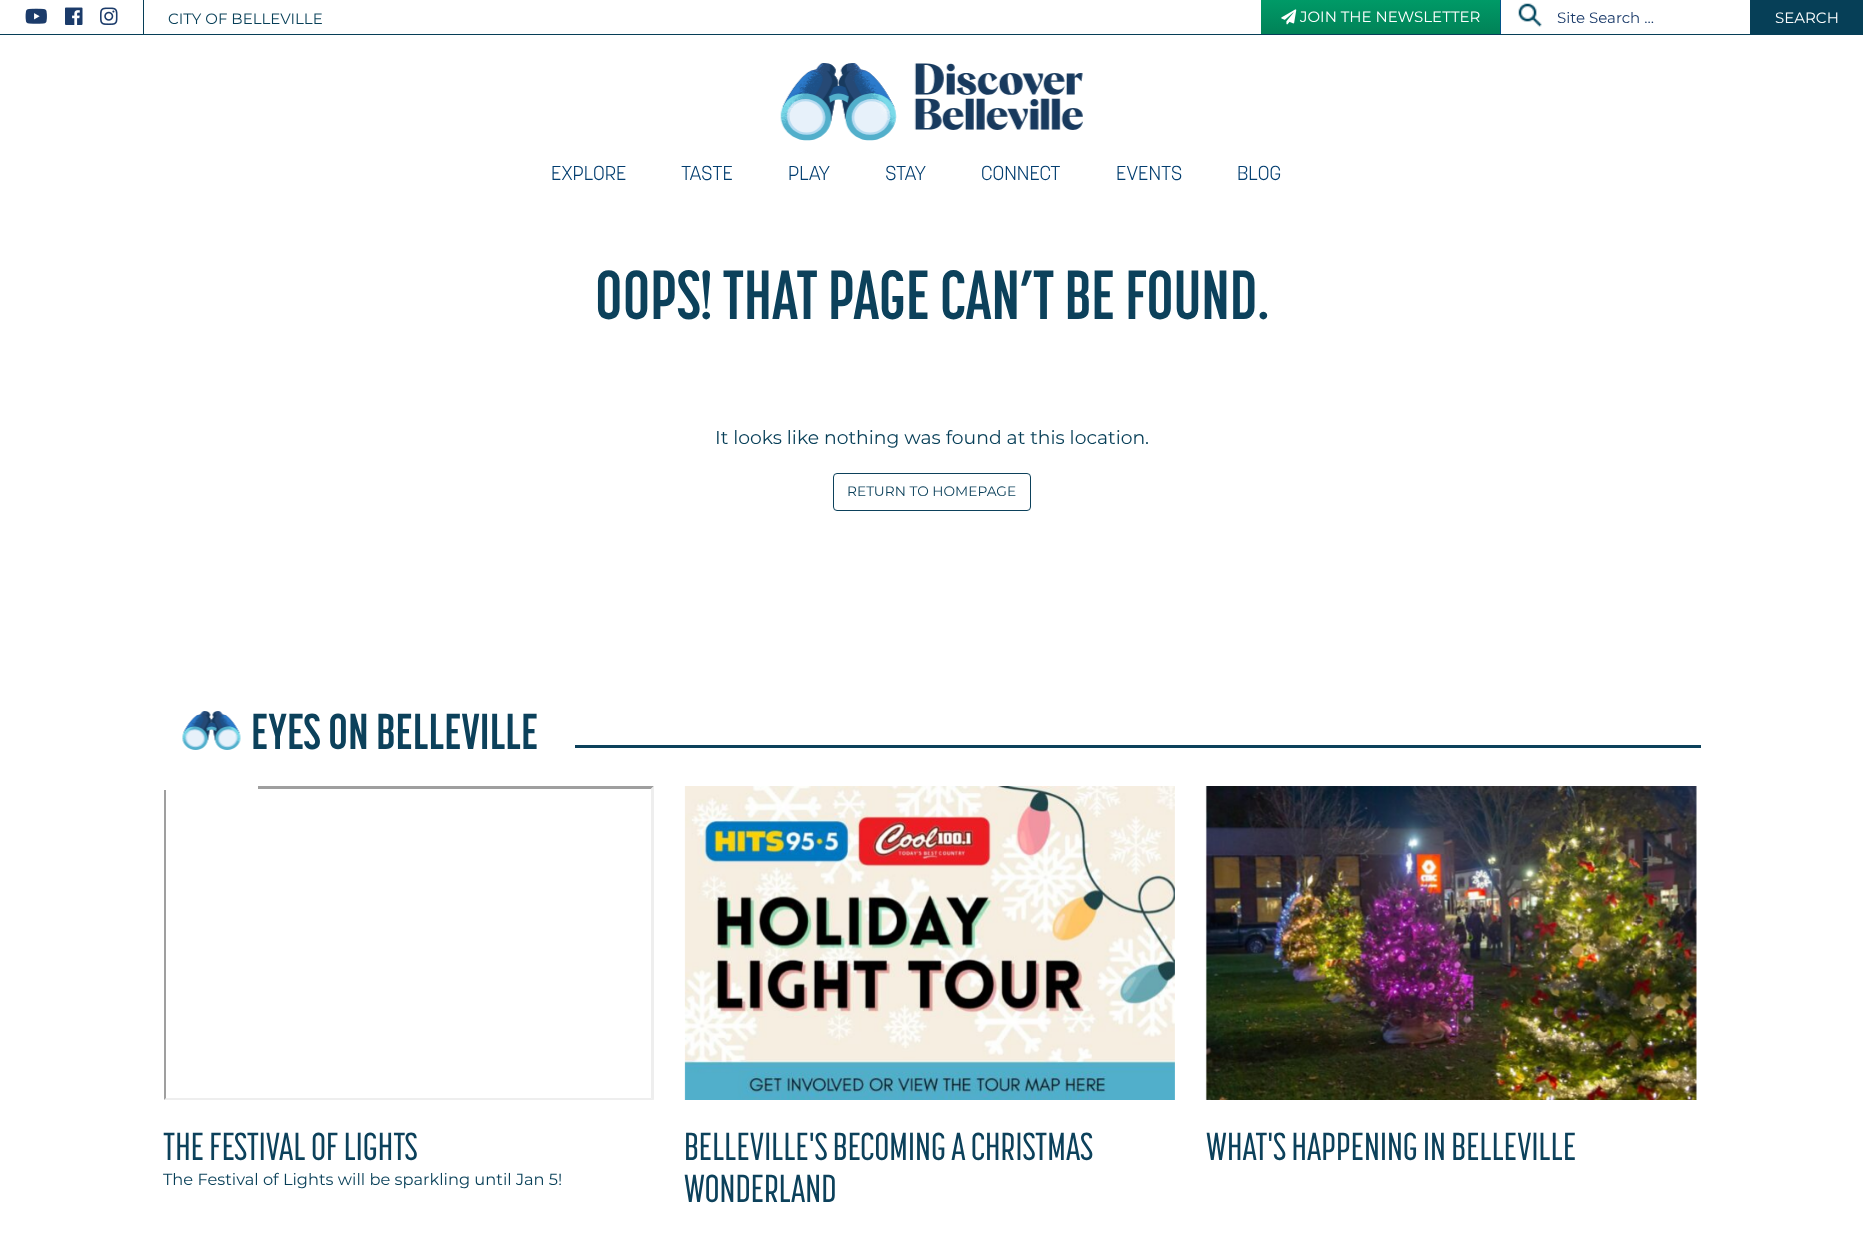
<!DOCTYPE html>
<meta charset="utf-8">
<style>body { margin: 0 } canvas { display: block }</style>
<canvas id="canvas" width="1863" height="1244"></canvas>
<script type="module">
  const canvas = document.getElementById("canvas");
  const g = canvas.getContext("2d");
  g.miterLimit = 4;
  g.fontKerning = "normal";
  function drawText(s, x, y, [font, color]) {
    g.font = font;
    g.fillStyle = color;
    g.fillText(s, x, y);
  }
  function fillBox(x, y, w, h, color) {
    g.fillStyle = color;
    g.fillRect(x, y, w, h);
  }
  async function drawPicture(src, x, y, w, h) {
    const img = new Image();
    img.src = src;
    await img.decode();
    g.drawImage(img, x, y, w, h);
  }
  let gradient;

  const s1 = ["15px Montserrat", "#063E57"];
  const s2 = ["15px Montserrat", "#FFFFFF"];
  const s3 = ["15px Montserrat", "#1B3B6A"];
  const s4 = ["300 20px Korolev", "#023D6F"];
  const s5 = ["bold 68.75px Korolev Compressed", "#0C415B"];
  const s6 = ["18.75px Montserrat", "#063E57"];
  const s7 = ["13.75px Montserrat", "#0C415B"];
  const s8 = ["bold 50px Korolev Compressed", "#0C415B"];
  const s9 = ["500 38.75px Korolev Compressed", "#0C415B"];
  const s10 = ["16.25px Montserrat", "#063E57"];

  fillBox(0, 0, 1863, 1244, "#FFFFFF");
  fillBox(0, 34, 1863, 1, "#063E57");
  fillBox(143, 0, 1, 34, "#063E57");
  await drawPicture("pic1.png", 25, 8, 22, 16);
  await drawPicture("pic2.png", 65, 7, 18, 18);
  await drawPicture("pic3.png", 100, 7, 18, 18);
  drawText("CITY OF BELLEVILLE", 168, 24, s1);
  gradient = g.createLinearGradient(1381, 0, 1381, 34);
  gradient.addColorStop(0, "#009A67");
  gradient.addColorStop(1, "#018257");
  g.fillStyle = gradient;
  g.fillRect(1261, 0, 239, 34);
  await drawPicture("pic4.png", 1281, 9, 16, 16);
  drawText("JOIN THE NEWSLETTER", 1300, 22, s2);
  await drawPicture("pic5.png", 1518, 3, 24, 24);
  fillBox(1500, 0, 1, 34, "#025589");
  drawText("Site Search …", 1557, 23, s3);
  fillBox(1750, 0, 113, 34, "#063F57");
  drawText("SEARCH", 1775, 23, s2);
  await drawPicture("pic6.png", 780, 63, 303, 78);
  drawText("EXPLORE", 551, 180, s4);
  drawText("TASTE", 681, 180, s4);
  drawText("PLAY", 788, 180, s4);
  drawText("STAY", 885, 180, s4);
  drawText("CONNECT", 981, 180, s4);
  drawText("EVENTS", 1116, 180, s4);
  drawText("BLOG", 1237, 180, s4);
  drawText("OOPS! THAT PAGE CAN’T BE FOUND.", 595, 319, s5);
  drawText("It looks like nothing was found at this location.", 715, 444, s6);
  g.beginPath();
  g.roundRect(833.5, 473.5, 197, 37, 3.5);
  g.strokeStyle = "#0C415B";
  g.stroke();
  drawText("RETURN TO HOMEPAGE", 847, 496, s7);
  g.fillStyle = "#9F9F9F";
  g.beginPath();
  g.moveTo(164, 786);
  g.lineTo(654, 786);
  g.lineTo(651, 789);
  g.lineTo(166, 789);
  g.closePath();
  g.fill();
  g.fillStyle = "#EEEEEE";
  g.beginPath();
  g.moveTo(654, 786);
  g.lineTo(654, 1100);
  g.lineTo(651, 1098);
  g.lineTo(651, 789);
  g.closePath();
  g.fill();
  g.beginPath();
  g.moveTo(654, 1100);
  g.lineTo(164, 1100);
  g.lineTo(166, 1098);
  g.lineTo(651, 1098);
  g.closePath();
  g.fill();
  g.fillStyle = "#9F9F9F";
  g.beginPath();
  g.moveTo(164, 1100);
  g.lineTo(164, 786);
  g.lineTo(166, 789);
  g.lineTo(166, 1098);
  g.closePath();
  g.fill();
  fillBox(164, 786, 94, 4, "#FFFFFF");
  await drawPicture("pic7.png", 182, 711, 59, 39);
  drawText("EYES ON BELLEVILLE", 251, 749, s8);
  fillBox(575, 745, 1126, 3, "#0C415B");
  drawText("THE FESTIVAL OF LIGHTS", 163, 1160, s9);
  drawText("The Festival of Lights will be sparkling until Jan 5!", 163, 1185, s10);
  await drawPicture("pic8.png", 684, 786, 491, 314);
  drawText("BELLEVILLE'S BECOMING A CHRISTMAS", 684, 1160, s9);
  drawText("WONDERLAND", 684, 1202, s9);
  await drawPicture("pic9.png", 1205, 786, 492, 314);
  drawText("WHAT'S HAPPENING IN BELLEVILLE", 1206, 1160, s9);
</script>
